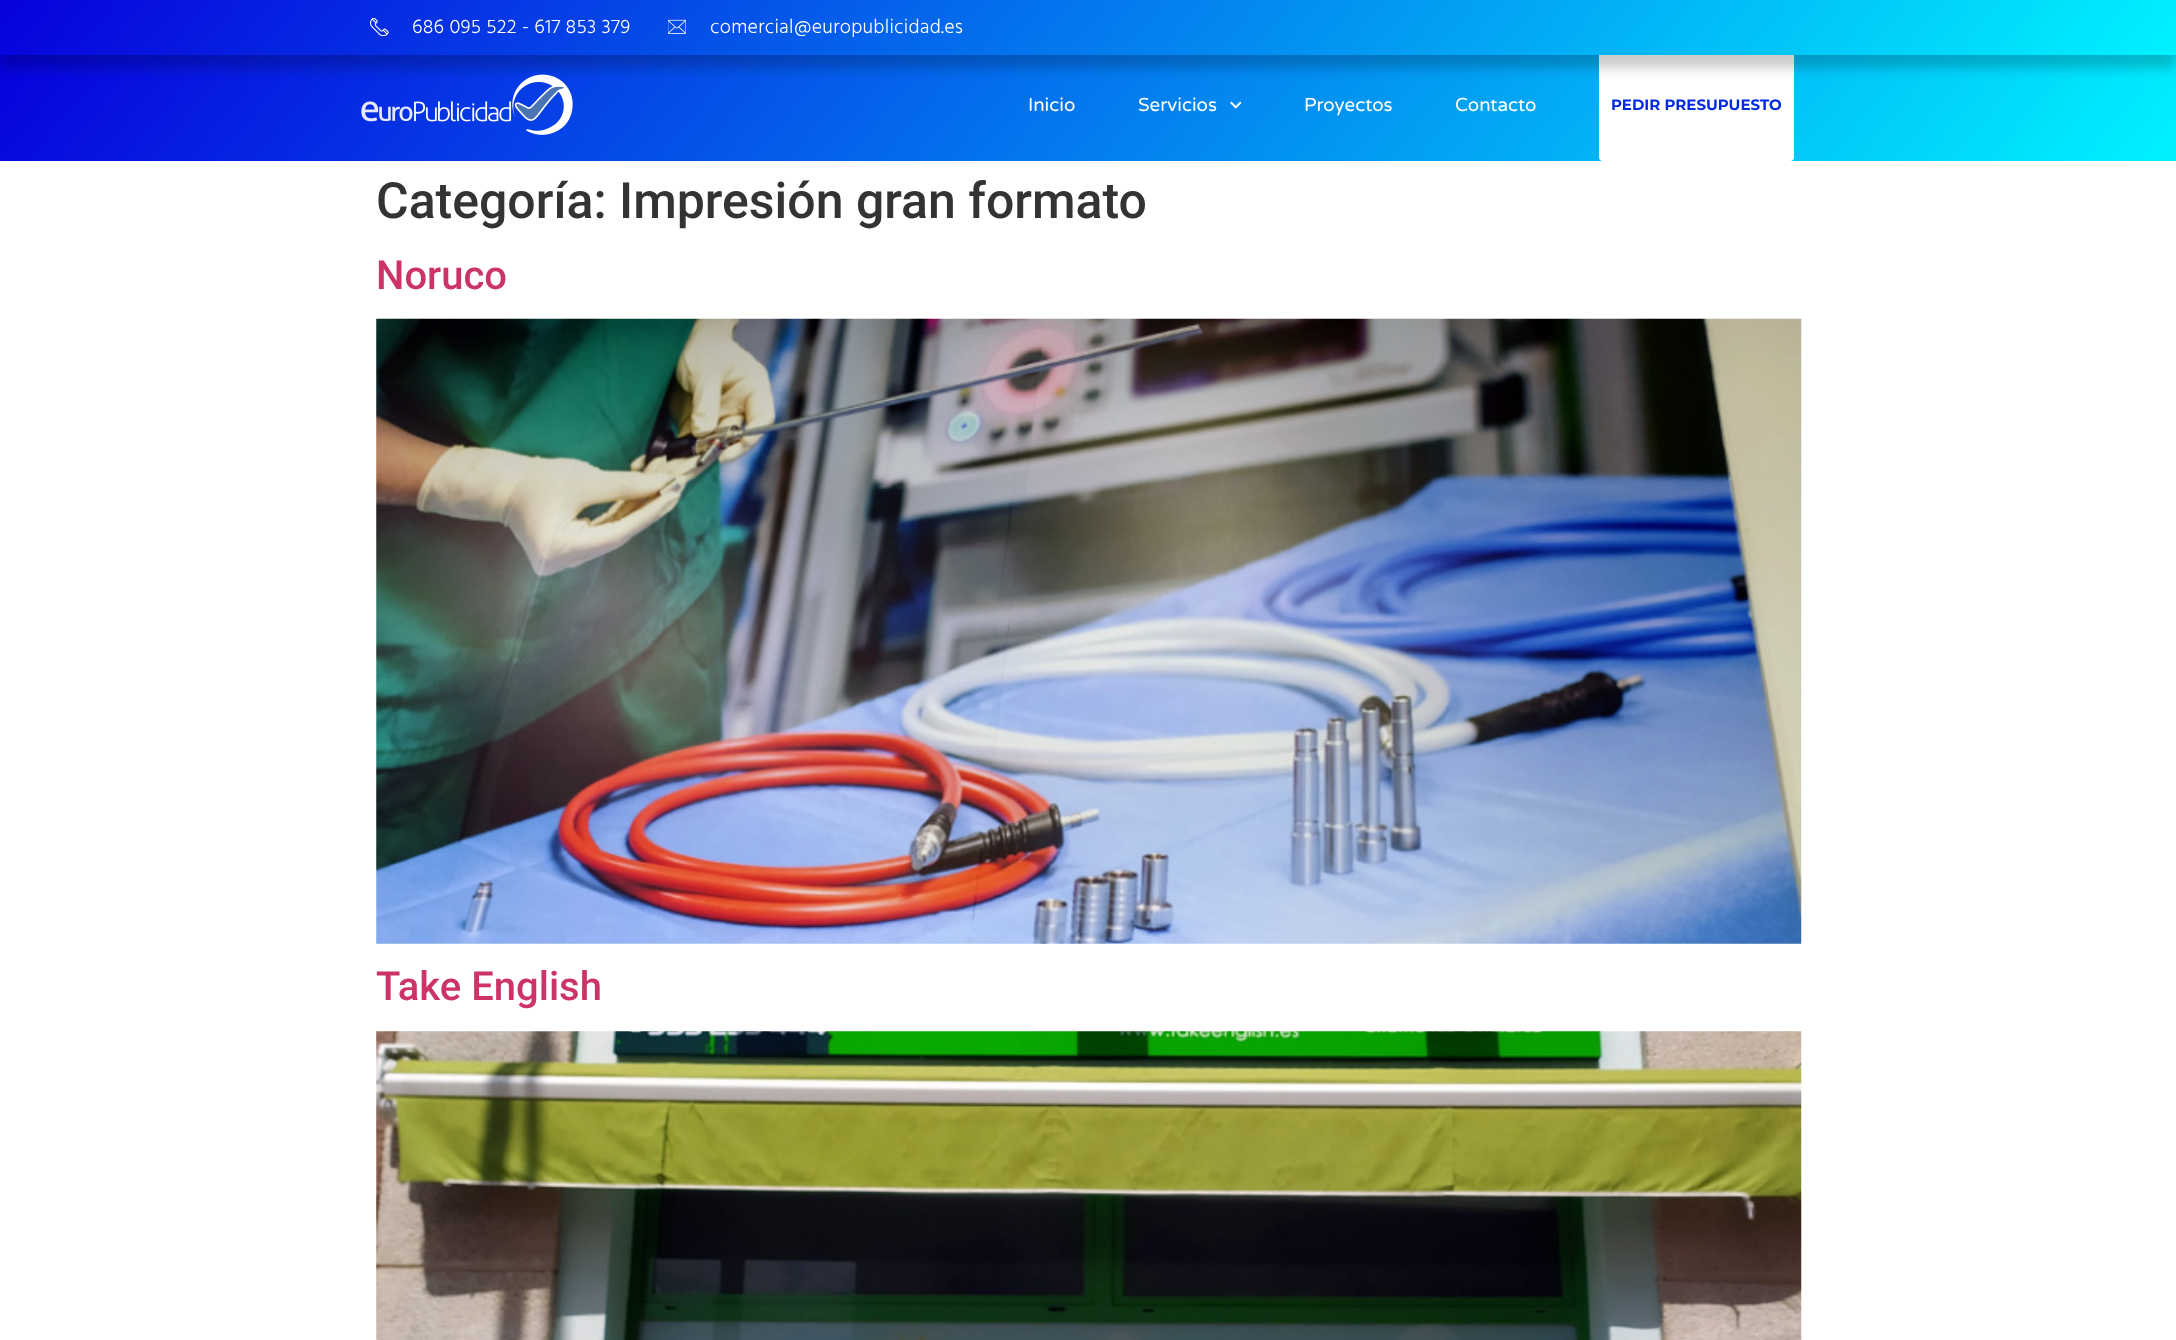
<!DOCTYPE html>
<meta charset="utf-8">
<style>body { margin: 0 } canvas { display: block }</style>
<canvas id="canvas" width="2176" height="1340"></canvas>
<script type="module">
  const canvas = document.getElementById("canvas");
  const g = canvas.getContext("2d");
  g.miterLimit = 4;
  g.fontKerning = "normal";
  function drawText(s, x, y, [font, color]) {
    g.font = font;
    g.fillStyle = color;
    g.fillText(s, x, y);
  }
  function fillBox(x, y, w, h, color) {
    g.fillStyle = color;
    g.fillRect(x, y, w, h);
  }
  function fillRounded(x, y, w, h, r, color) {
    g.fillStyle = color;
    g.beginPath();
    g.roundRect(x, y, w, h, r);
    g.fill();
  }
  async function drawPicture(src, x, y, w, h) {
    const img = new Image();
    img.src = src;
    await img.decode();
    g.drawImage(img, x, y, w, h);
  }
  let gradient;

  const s1 = ["300 20px Hind", "#FFFFFF"];
  const s2 = ["18.75px Varela Round", "#FFFFFF"];
  const s3 = ["bold 15px Montserrat", "#022AE1"];
  const s4 = ["500 50px Roboto", "#333333"];
  const s5 = ["500 40px Roboto", "#CC3366"];

  fillBox(0, 0, 2176, 1340, "#FFFFFF");
  gradient = g.createLinearGradient(422, -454, 1754, 664);
  gradient.addColorStop(0, "#0700DD");
  gradient.addColorStop(1, "#00F2FF");
  g.fillStyle = gradient;
  g.fillRect(0, 55, 2176, 106);
  await drawPicture("pic3.png", 361, 74, 212, 61);
  fillRounded(1599, 49, 195, 112, 4, "#FFFFFF");
  g.fillStyle = "rgba(0, 0, 0, 0.2)";
  g.filter = "blur(6px)";
  g.beginPath();
  g.rect(0, 13, 2176, 55);
  g.fill();
  g.filter = "none";
  gradient = g.createLinearGradient(436, -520, 1740, 575);
  gradient.addColorStop(0, "#0700DD");
  gradient.addColorStop(1, "#00F2FF");
  g.fillStyle = gradient;
  g.fillRect(0, 0, 2176, 55);
  await drawPicture("pic1.png", 370, 18, 19, 18);
  g.letterSpacing = "0.25px";
  drawText("686 095 522 - 617 853 379", 412, 33, s1);
  await drawPicture("pic2.png", 668, 19, 18, 15);
  drawText("comercial@europublicidad.es", 710, 33, s1);
  g.letterSpacing = "0px";
  drawText("Inicio", 1028, 111, s2);
  drawText("Servicios", 1138, 111, s2);
  await drawPicture("pic4.png", 1230, 101, 12, 8);
  drawText("Proyectos", 1304, 111, s2);
  drawText("Contacto", 1455, 111, s2);
  drawText("PEDIR PRESUPUESTO", 1611, 110, s3);
  drawText("Categoría: Impresión gran formato", 376, 218, s4);
  drawText("Noruco", 376, 289, s5);
  await drawPicture("pic5.png", 376, 318, 1426, 626);
  drawText("Take English", 376, 1000, s5);
  await drawPicture("pic6.png", 376, 1031, 1426, 309);
</script>
